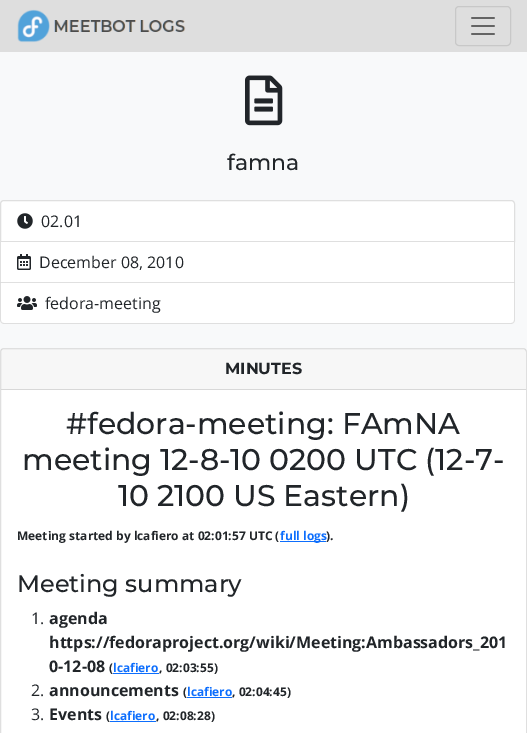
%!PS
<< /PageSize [527 733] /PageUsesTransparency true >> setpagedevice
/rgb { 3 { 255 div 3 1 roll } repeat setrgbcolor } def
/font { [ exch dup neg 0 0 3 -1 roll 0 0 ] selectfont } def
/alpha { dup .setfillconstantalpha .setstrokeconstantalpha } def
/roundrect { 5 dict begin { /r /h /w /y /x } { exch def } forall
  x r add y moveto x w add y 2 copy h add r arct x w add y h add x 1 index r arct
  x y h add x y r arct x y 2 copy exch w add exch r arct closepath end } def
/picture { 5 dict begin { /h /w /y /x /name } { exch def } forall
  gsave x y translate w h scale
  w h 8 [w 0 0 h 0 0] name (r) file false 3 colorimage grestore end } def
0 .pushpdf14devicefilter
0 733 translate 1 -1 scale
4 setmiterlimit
248 249 250 rgb
0 0 527 733 rectfill
222 222 222 rgb
0 0 527 52 rectfill
(img/1.rgb) 17 9 169 34 picture
200 200 200 rgb
455.5 6.5 55 39 3.5 roundrect stroke
(img/2.rgb) 471 17 24 18 picture
(img/3.rgb) 245 75 38 51 picture
255 255 255 rgb
4 200.5 moveto 511 200.5 lineto 513 200.5 514.5 202 514.5 204 curveto 514.5 241.5 lineto 0.5 241.5 lineto 0.5 204 lineto 0.5 202 2 200.5 4 200.5 curveto closepath gsave fill grestore
223 223 223 rgb
stroke
(img/4.rgb) 17 213 16 16 picture
255 255 255 rgb
0 242 515 41 rectfill
223 223 223 rgb
515 242 moveto 515 283 lineto 514 282 lineto 514 242 lineto closepath fill
0.12 alpha
0 0 0 rgb
515 283 moveto 0 283 lineto 1 282 lineto 514 282 lineto closepath fill
0 283 moveto 0 242 lineto 1 242 lineto 1 282 lineto closepath fill
1 alpha
(img/5.rgb) 17 254 14 16 picture
255 255 255 rgb
0 283 moveto 515 283 lineto 515 320 lineto 515 322 513 324 511 324 curveto 4 324 lineto 2 324 0 322 0 320 curveto closepath fill
223 223 223 rgb
0 283 moveto 515 283 lineto 515 320 lineto 515 322 513 324 511 324 curveto 4 324 lineto 2 324 0 322 0 320 curveto closepath 1 283 moveto 514 283 lineto 514 320 lineto 514 322 513 323 511 323 curveto 4 323 lineto 2 323 1 322 1 320 curveto closepath eofill
(img/6.rgb) 17 296 20 14 picture
255 255 255 rgb
0.5 348.5 526 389 3.5 roundrect gsave fill grestore
223 223 223 rgb
stroke
0.03 alpha
[
  [1 349 525 40 0 0 0]
] { aload pop rgb rectfill } forall
1 alpha
[
  [1 389 525 1 216 216 216]
  [280 541 46 1 13 110 253]
  [113 673 46 1 13 110 253]
  [187 697 45 1 13 110 253]
  [110 721 46 1 13 110 253]
] { aload pop rgb rectfill } forall
/Montserrat-Medium 22 font
33 37 41 rgb
227 170 moveto (famna) show
/OpenSans-Regular 16 font
[
  [(02.01) 41 227]
  [(December 08, 2010) 39 268]
  [(fedora-meeting) 45 309]
] { aload pop moveto show } forall
/Montserrat-Bold 16 font
225 374 moveto (MINUTES) show
/Montserrat-Medium 29.9 font
[
  [(#fedora-meeting: FAmNA) 66 434]
  [(meeting 12-8-10 0200 UTC \(12-7-) 22 470]
  [(10 2100 US Eastern\)) 118 506]
] { aload pop moveto show } forall
/OpenSans-Bold 12 font
17 540 moveto (Meeting started by lcafiero at 02:01:57 UTC \() show
13 110 253 rgb
280 540 moveto (full logs) show
33 37 41 rgb
326 540 moveto (\).) show
/Montserrat-Medium 24 font
17 592 moveto (Meeting summary) show
/OpenSans-Regular 16 font
31 624 moveto (1.) show
/OpenSans-Bold 16 font
[
  [(agenda) 49 624]
  [(https://fedoraproject.org/wiki/Meeting:Ambassadors_201) 49 648]
  [(0-12-08) 49 672]
] { aload pop moveto show } forall
/OpenSans-Bold 12 font
109 672 moveto (\() show
13 110 253 rgb
113 672 moveto (lcafiero) show
33 37 41 rgb
159 672 moveto (, 02:03:55\)) show
/OpenSans-Regular 16 font
31 696 moveto (2.) show
/OpenSans-Bold 16 font
49 696 moveto (announcements) show
/OpenSans-Bold 12 font
183 696 moveto (\() show
13 110 253 rgb
187 696 moveto (lcafiero) show
33 37 41 rgb
232 696 moveto (, 02:04:45\)) show
/OpenSans-Regular 16 font
31 720 moveto (3.) show
/OpenSans-Bold 16 font
49 720 moveto (Events) show
/OpenSans-Bold 12 font
106 720 moveto (\() show
13 110 253 rgb
110 720 moveto (lcafiero) show
33 37 41 rgb
156 720 moveto (, 02:08:28\)) show
.poppdf14devicefilter showpage
